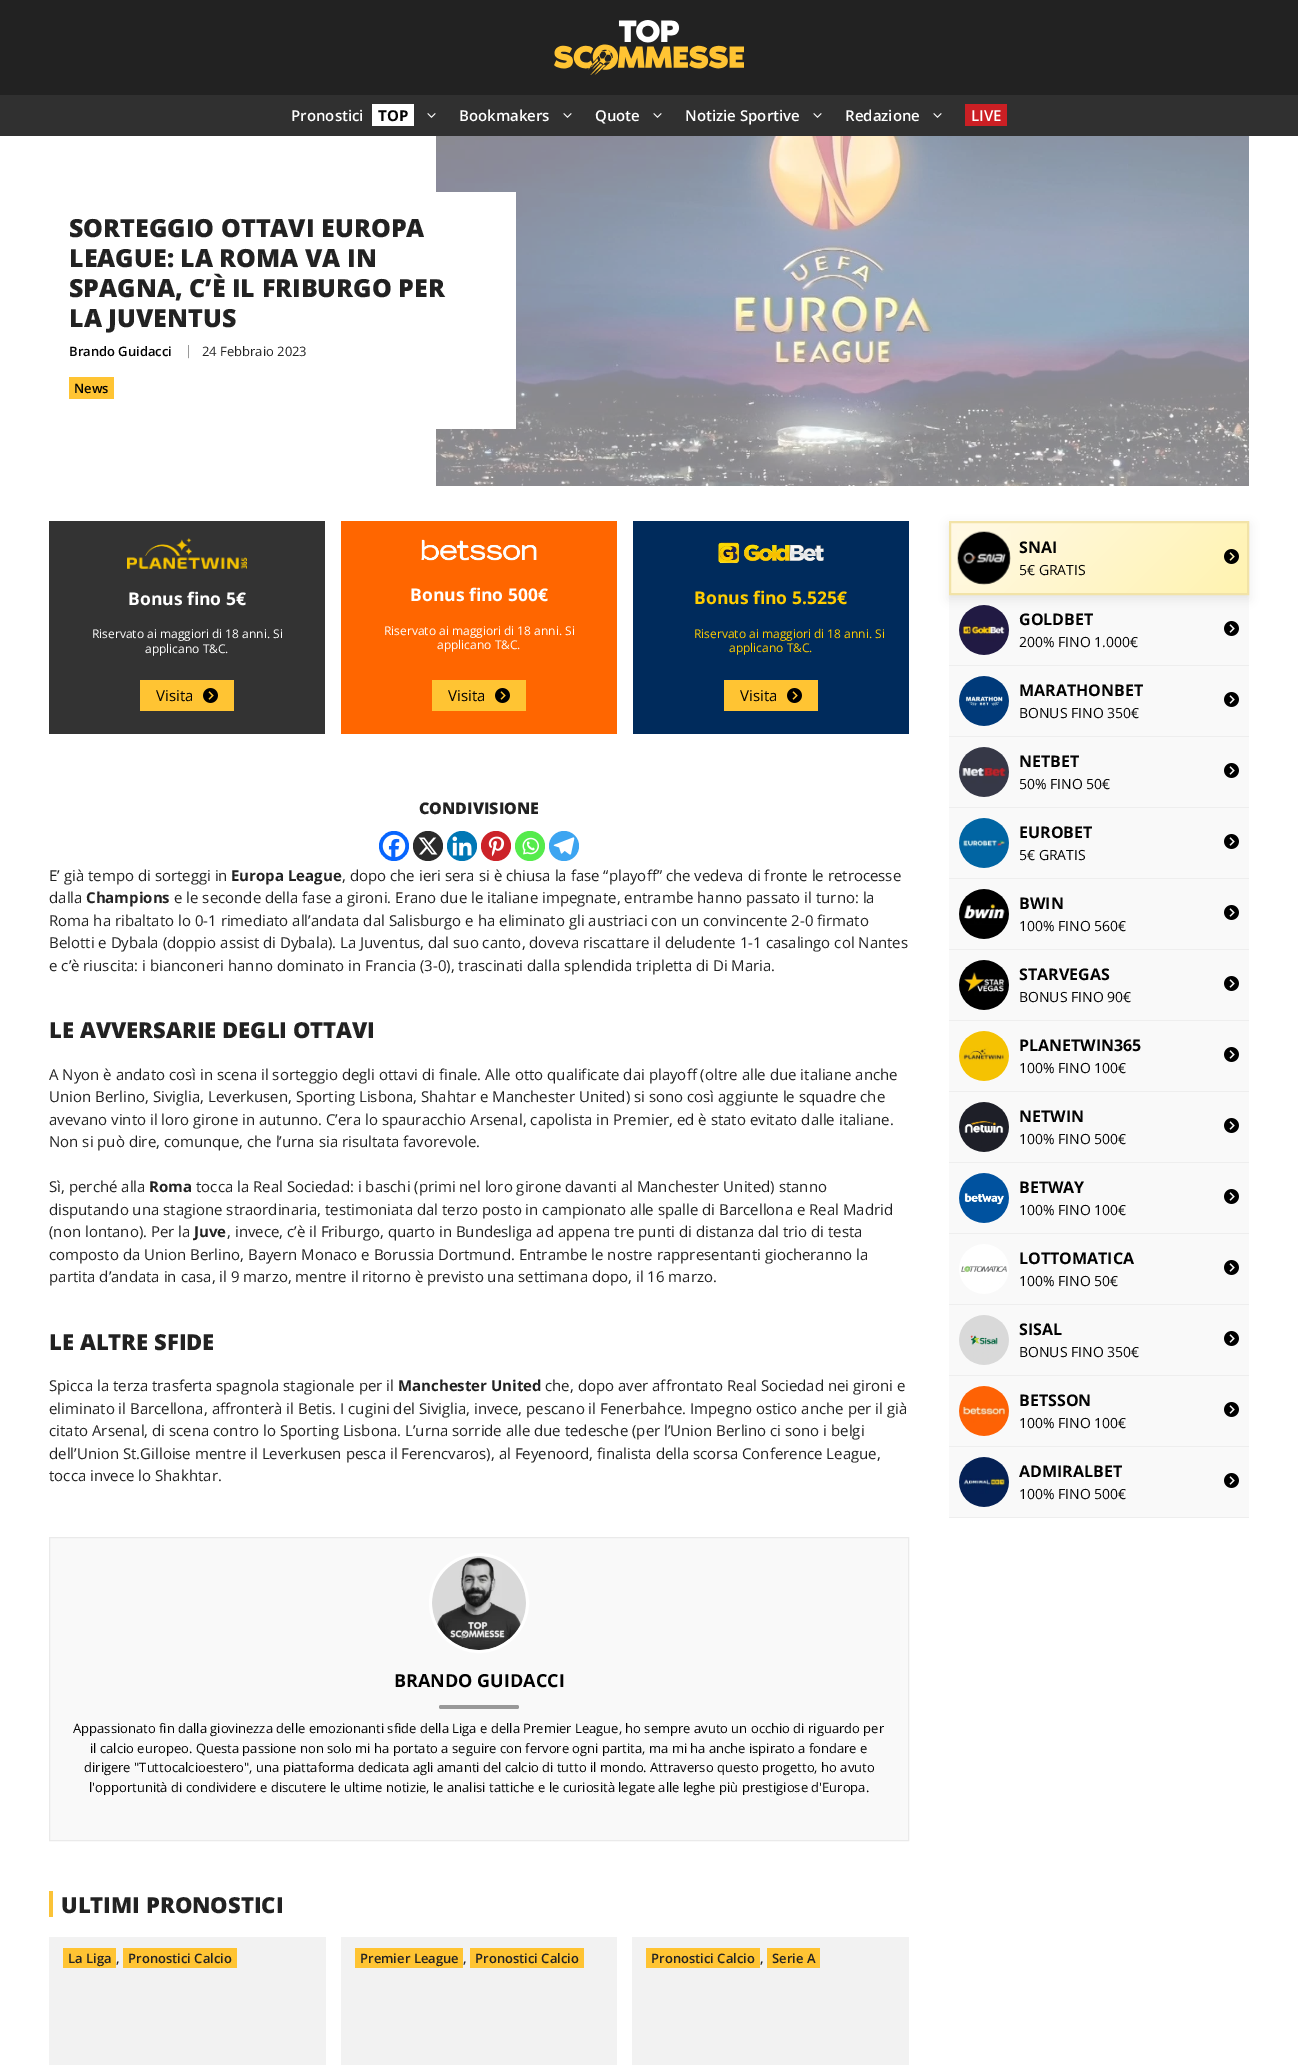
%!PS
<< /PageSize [1298 2065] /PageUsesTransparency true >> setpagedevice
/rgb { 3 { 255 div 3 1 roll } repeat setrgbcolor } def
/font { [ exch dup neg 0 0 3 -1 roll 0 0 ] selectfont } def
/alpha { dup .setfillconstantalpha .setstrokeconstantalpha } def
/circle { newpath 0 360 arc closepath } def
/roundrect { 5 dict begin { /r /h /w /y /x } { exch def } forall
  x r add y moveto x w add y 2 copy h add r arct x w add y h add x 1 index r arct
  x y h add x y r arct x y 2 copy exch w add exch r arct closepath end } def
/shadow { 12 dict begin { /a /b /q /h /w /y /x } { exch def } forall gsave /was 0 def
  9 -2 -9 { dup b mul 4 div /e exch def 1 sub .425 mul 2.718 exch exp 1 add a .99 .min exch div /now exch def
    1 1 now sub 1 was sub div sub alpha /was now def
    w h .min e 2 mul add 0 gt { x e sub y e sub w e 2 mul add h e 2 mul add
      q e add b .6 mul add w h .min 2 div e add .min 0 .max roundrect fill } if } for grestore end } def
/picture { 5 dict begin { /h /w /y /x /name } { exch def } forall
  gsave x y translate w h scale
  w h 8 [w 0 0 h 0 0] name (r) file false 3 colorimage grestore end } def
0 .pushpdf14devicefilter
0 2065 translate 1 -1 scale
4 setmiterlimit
255 255 255 rgb
0 0 1298 2065 rectfill
34 34 34 rgb
0 0 1298 95 rectfill
(img/1.rgb) 554 20 190 55 picture
48 48 48 rgb
0 95 1298 41 rectfill
255 255 255 rgb
372 104 42 22 rectfill
(img/2.rgb) 427 113 9 5 picture
(img/2.rgb) 563 113 9 5 picture
(img/2.rgb) 653 113 9 5 picture
(img/2.rgb) 813 113 9 5 picture
(img/2.rgb) 933 113 9 5 picture
203 31 36 rgb
965 104 42 22 rectfill
(img/3.rgb) 436 136 813 350 picture
[
  [436 192 80 237 255 255 255]
  [69 377 45 22 255 196 51]
  [49 521 276 213 51 51 51]
] { aload pop rgb rectfill } forall
(img/4.rgb) 127 538 120 31 picture
255 196 51 rgb
140 680 94 31 rectfill
(img/5.rgb) 203 688 15 15 picture
255 102 0 rgb
341 521 276 213 rectfill
(img/6.rgb) 421 539 116 22 picture
255 196 51 rgb
432 680 94 31 rectfill
(img/5.rgb) 495 688 15 15 picture
0 43 92 rgb
633 521 276 213 rectfill
(img/7.rgb) 718 542 106 22 picture
255 196 51 rgb
724 680 94 31 rectfill
(img/5.rgb) 787 688 15 15 picture
7 101 254 rgb
394 846 15 circle fill
(img/8.rgb) 382 834 24 24 picture
42 42 42 rgb
428 846 15 circle fill
(img/9.rgb) 418 837 20 18 picture
0 119 181 rgb
462 846 15 circle fill
(img/10.rgb) 452 836 20 20 picture
204 35 41 rgb
496 846 15 circle fill
(img/11.rgb) 488 836 17 21 picture
85 235 76 rgb
530 846 15 circle fill
(img/12.rgb) 522 837 17 18 picture
61 165 241 rgb
564 846 15 circle fill
(img/13.rgb) 553 837 22 18 picture
249 249 249 rgb
49.5 1537.5 moveto 908.5 1537.5 lineto 908.5 1840.5 lineto 49.5 1840.5 lineto closepath gsave fill grestore
234 234 234 rgb
stroke
255 255 255 rgb
3 setlinewidth
479 1603 48.5 circle stroke
(img/14.rgb) 432 1556 94 94 picture
153 153 153 rgb
439 1705 80 4 2 roundrect fill
[
  [49 1891 4 26 251 195 55]
  [49 1937 277 128 242 242 242]
  [63 1948 53 20 255 196 51]
  [123 1948 114 20 255 196 51]
  [341 1937 276 128 242 242 242]
  [355 1948 108 20 255 196 51]
  [470 1948 114 20 255 196 51]
  [632 1937 277 128 242 242 242]
  [646 1948 114 20 255 196 51]
  [767 1948 53 20 255 196 51]
  [949 595 300 70 249 249 249]
] { aload pop rgb rectfill } forall
(img/17.rgb) 959 605 50 50 picture
0 0 0 rgb
949 525 300 74 0 5 0.08 shadow
gsave 951 523 moveto 1247 523 lineto 1247 593 lineto 951 593 lineto closepath clip newpath
<< /ShadingType 2 /ColorSpace /DeviceRGB /Coords [1008 467 1191 650] /Extend [true true] /Function << /FunctionType 2 /Domain [0 1] /C0 [1 0.976 0.902] /C1 [1 0.953 0.69] /N 1 >> >> shfill grestore
242 227 167 rgb
2 setlinewidth
950 522 298 72 rectstroke
(img/15.rgb) 957 531 54 54 picture
(img/16.rgb) 1224 549 15 15 picture
238 238 238 rgb
949 665 300 1 rectfill
(img/18.rgb) 1224 621 15 15 picture
249 249 249 rgb
949 666 300 70 rectfill
238 238 238 rgb
949 736 300 1 rectfill
(img/19.rgb) 959 676 50 50 picture
(img/18.rgb) 1224 692 15 15 picture
249 249 249 rgb
949 737 300 70 rectfill
238 238 238 rgb
949 807 300 1 rectfill
(img/20.rgb) 959 747 50 50 picture
(img/18.rgb) 1224 763 15 15 picture
249 249 249 rgb
949 808 300 70 rectfill
238 238 238 rgb
949 878 300 1 rectfill
(img/21.rgb) 959 818 50 50 picture
(img/18.rgb) 1224 834 15 15 picture
249 249 249 rgb
949 879 300 70 rectfill
238 238 238 rgb
949 949 300 1 rectfill
(img/22.rgb) 959 889 50 50 picture
(img/18.rgb) 1224 905 15 15 picture
249 249 249 rgb
949 950 300 70 rectfill
238 238 238 rgb
949 1020 300 1 rectfill
(img/23.rgb) 959 960 50 50 picture
(img/18.rgb) 1224 976 15 15 picture
249 249 249 rgb
949 1021 300 70 rectfill
238 238 238 rgb
949 1091 300 1 rectfill
(img/24.rgb) 959 1031 50 50 picture
(img/18.rgb) 1224 1047 15 15 picture
249 249 249 rgb
949 1092 300 70 rectfill
238 238 238 rgb
949 1162 300 1 rectfill
(img/25.rgb) 959 1102 50 50 picture
(img/18.rgb) 1224 1118 15 15 picture
249 249 249 rgb
949 1163 300 70 rectfill
238 238 238 rgb
949 1233 300 1 rectfill
(img/26.rgb) 959 1173 50 50 picture
(img/18.rgb) 1224 1189 15 15 picture
249 249 249 rgb
949 1234 300 70 rectfill
238 238 238 rgb
949 1304 300 1 rectfill
(img/27.rgb) 959 1244 50 50 picture
(img/18.rgb) 1224 1260 15 15 picture
249 249 249 rgb
949 1305 300 70 rectfill
238 238 238 rgb
949 1375 300 1 rectfill
(img/28.rgb) 959 1315 50 50 picture
(img/18.rgb) 1224 1331 15 15 picture
249 249 249 rgb
949 1376 300 70 rectfill
238 238 238 rgb
949 1446 300 1 rectfill
(img/29.rgb) 959 1386 50 50 picture
(img/18.rgb) 1224 1402 15 15 picture
249 249 249 rgb
949 1447 300 70 rectfill
238 238 238 rgb
949 1517 300 1 rectfill
(img/30.rgb) 959 1457 50 50 picture
(img/18.rgb) 1224 1473 15 15 picture
/OpenSans-SemiBold 15 font
255 255 255 rgb
291 121 moveto (Pronostici) show
/OpenSans-Bold 15 font
2 2 2 rgb
378 121 moveto (TOP) show
/OpenSans-SemiBold 15 font
255 255 255 rgb
[
  [(Bookmakers) 459 121]
  [(Quote) 595 121]
  [(Notizie Sportive) 685 121]
  [(Redazione) 845 121]
  [(LIVE) 971 121]
] { aload pop moveto show } forall
/OpenSans-ExtraBold 25 font
34 34 34 rgb
[
  [(SORTEGGIO OTTAVI EUROPA) 69 237]
  [(LEAGUE: LA ROMA VA IN) 69 267]
  [(SPAGNA, C’È IL FRIBURGO PER) 69 297]
  [(LA JUVENTUS) 69 327]
] { aload pop moveto show } forall
/OpenSans-SemiBold 13 font
2 2 2 rgb
69 356 moveto (Brando Guidacci) show
/OpenSans-Regular 13 font
153 153 153 rgb
185 355 moveto (|) show
34 34 34 rgb
202 356 moveto (24 Febbraio 2023) show
/OpenSans-SemiBold 13 font
2 2 2 rgb
74 393 moveto (News) show
/OpenSans-Bold 17.5 font
255 255 255 rgb
128 605 moveto (Bonus fino 5€) show
/OpenSans-Regular 12 font
92 638 moveto (Riservato ai maggiori di 18 anni. Si) show
145 653 moveto (applicano T&C.) show
/OpenSans-Regular 15 font
2 2 2 rgb
156 701 moveto (Visita) show
/OpenSans-Bold 17.5 font
255 255 255 rgb
410 601 moveto (Bonus fino 500€) show
/OpenSans-Regular 12 font
384 635 moveto (Riservato ai maggiori di 18 anni. Si) show
437 649 moveto (applicano T&C.) show
/OpenSans-Regular 15 font
2 2 2 rgb
448 701 moveto (Visita) show
/OpenSans-Bold 17.5 font
255 204 0 rgb
694 604 moveto (Bonus fino 5.525€) show
/OpenSans-Regular 12 font
694 638 moveto (Riservato ai maggiori di 18 anni. Si) show
729 652 moveto (applicano T&C.) show
/OpenSans-Regular 15 font
2 2 2 rgb
740 701 moveto (Visita) show
/OpenSans-ExtraBold 16 font
34 34 34 rgb
419 814 moveto (CONDIVISIONE) show
/OpenSans-Regular 15 font
49 881 moveto (E’ già tempo di sorteggi in) show
/OpenSans-Bold 15 font
231 881 moveto (Europa League) show
/OpenSans-Regular 15 font
342 881 moveto (, dopo che ieri sera si è chiusa la fase “playoff” che vedeva di fronte le retrocesse) show
49 903 moveto (dalla) show
/OpenSans-Bold 15 font
86 903 moveto (Champions) show
/OpenSans-Regular 15 font
[
  [(e le seconde della fase a gironi. Erano due le italiane impegnate, entrambe hanno passato il turno: la) 174 903]
  [(Roma ha ribaltato lo 0-1 rimediato all’andata dal Salisburgo e ha eliminato gli austriaci con un convincente 2-0 firmato) 49 926]
  [(Belotti e Dybala \(doppio assist di Dybala\). La Juventus, dal suo canto, doveva riscattare il deludente 1-1 casalingo col Nantes) 49 948]
  [(e c’è riuscita: i bianconeri hanno dominato in Francia \(3-0\), trascinati dalla splendida tripletta di Di Maria.) 49 971]
] { aload pop moveto show } forall
/OpenSans-ExtraBold 22 font
49 1038 moveto (LE AVVERSARIE DEGLI OTTAVI) show
/OpenSans-Regular 15 font
[
  [(A Nyon è andato così in scena il sorteggio degli ottavi di finale. Alle otto qualificate dai playoff \(oltre alle due italiane anche) 49 1080]
  [(Union Berlino, Siviglia, Leverkusen, Sporting Lisbona, Shahtar e Manchester United\) si sono così aggiunte le squadre che) 49 1102]
  [(avevano vinto il loro girone in autunno. C’era lo spauracchio Arsenal, capolista in Premier, ed è stato evitato dalle italiane.) 49 1125]
  [(Non si può dire, comunque, che l’urna sia risultata favorevole.) 49 1147]
  [(Sì, perché alla) 49 1192]
] { aload pop moveto show } forall
/OpenSans-Bold 15 font
149 1192 moveto (Roma) show
/OpenSans-Regular 15 font
[
  [(tocca la Real Sociedad: i baschi \(primi nel loro girone davanti al Manchester United\) stanno) 196 1192]
  [(disputando una stagione straordinaria, testimoniata dal terzo posto in campionato alle spalle di Barcellona e Real Madrid) 49 1215]
  [(\(non lontano\). Per la) 49 1237]
] { aload pop moveto show } forall
/OpenSans-Bold 15 font
194 1237 moveto (Juve) show
/OpenSans-Regular 15 font
[
  [(, invece, c’è il Friburgo, quarto in Bundesliga ad appena tre punti di distanza dal trio di testa) 227 1237]
  [(composto da Union Berlino, Bayern Monaco e Borussia Dortmund. Entrambe le nostre rappresentanti giocheranno la) 49 1260]
  [(partita d’andata in casa, il 9 marzo, mentre il ritorno è previsto una settimana dopo, il 16 marzo.) 49 1282]
] { aload pop moveto show } forall
/OpenSans-ExtraBold 22 font
49 1350 moveto (LE ALTRE SFIDE) show
/OpenSans-Regular 15 font
49 1391 moveto (Spicca la terza trasferta spagnola stagionale per il) show
/OpenSans-Bold 15 font
398 1391 moveto (Manchester United) show
/OpenSans-Regular 15 font
[
  [(che, dopo aver affrontato Real Sociedad nei gironi e) 545 1391]
  [(eliminato il Barcellona, affronterà il Betis. I cugini del Siviglia, invece, pescano il Fenerbahce. Impegno ostico anche per il già) 49 1414]
  [(citato Arsenal, di scena contro lo Sporting Lisbona. L’urna sorride alle due tedesche \(per l’Union Berlino ci sono i belgi) 49 1436]
  [(dell’Union St.Gilloise mentre il Leverkusen pesca il Ferencvaros\), al Feyenoord, finalista della scorsa Conference League,) 49 1459]
  [(tocca invece lo Shakhtar.) 49 1481]
] { aload pop moveto show } forall
/OpenSans-Bold 18 font
2 2 2 rgb
394 1687 moveto (BRANDO GUIDACCI) show
/OpenSans-Regular 13 font
[
  [(Appassionato fin dalla giovinezza delle emozionanti sfide della Liga e della Premier League, ho sempre avuto un occhio di riguardo per) 73 1733]
  [(il calcio europeo. Questa passione non solo mi ha portato a seguire con fervore ogni partita, ma mi ha anche ispirato a fondare e) 90 1753]
  [(dirigere "Tuttocalcioestero", una piattaforma dedicata agli amanti del calcio di tutto il mondo. Attraverso questo progetto, ho avuto) 84 1772]
  [(l'opportunità di condividere e discutere le ultime notizie, le analisi tattiche e le curiosità legate alle leghe più prestigiose d'Europa.) 89 1792]
] { aload pop moveto show } forall
/OpenSans-ExtraBold 22 font
34 34 34 rgb
61 1913 moveto (ULTIMI PRONOSTICI) show
/OpenSans-SemiBold 13 font
[
  [(La Liga) 68 1963]
  [(,) 116 1963]
  [(Pronostici Calcio) 128 1963]
  [(Premier League) 360 1963]
  [(,) 463 1963]
  [(Pronostici Calcio) 475 1963]
  [(Pronostici Calcio) 651 1963]
  [(,) 760 1963]
  [(Serie A) 772 1963]
] { aload pop moveto show } forall
/OpenSans-Bold 16 font
2 2 2 rgb
1019 553 moveto (SNAI) show
/OpenSans-Regular 14 font
1019 575 moveto (5€ GRATIS) show
/OpenSans-Bold 16 font
1019 625 moveto (GOLDBET) show
/OpenSans-Regular 14 font
1019 647 moveto (200% FINO 1.000€) show
/OpenSans-Bold 16 font
1019 696 moveto (MARATHONBET) show
/OpenSans-Regular 14 font
1019 718 moveto (BONUS FINO 350€) show
/OpenSans-Bold 16 font
1019 767 moveto (NETBET) show
/OpenSans-Regular 14 font
1019 789 moveto (50% FINO 50€) show
/OpenSans-Bold 16 font
1019 838 moveto (EUROBET) show
/OpenSans-Regular 14 font
1019 860 moveto (5€ GRATIS) show
/OpenSans-Bold 16 font
1019 909 moveto (BWIN) show
/OpenSans-Regular 14 font
1019 931 moveto (100% FINO 560€) show
/OpenSans-Bold 16 font
1019 980 moveto (STARVEGAS) show
/OpenSans-Regular 14 font
1019 1002 moveto (BONUS FINO 90€) show
/OpenSans-Bold 16 font
1019 1051 moveto (PLANETWIN365) show
/OpenSans-Regular 14 font
1019 1073 moveto (100% FINO 100€) show
/OpenSans-Bold 16 font
1019 1122 moveto (NETWIN) show
/OpenSans-Regular 14 font
1019 1144 moveto (100% FINO 500€) show
/OpenSans-Bold 16 font
1019 1193 moveto (BETWAY) show
/OpenSans-Regular 14 font
1019 1215 moveto (100% FINO 100€) show
/OpenSans-Bold 16 font
1019 1264 moveto (LOTTOMATICA) show
/OpenSans-Regular 14 font
1019 1286 moveto (100% FINO 50€) show
/OpenSans-Bold 16 font
1019 1335 moveto (SISAL) show
/OpenSans-Regular 14 font
1019 1357 moveto (BONUS FINO 350€) show
/OpenSans-Bold 16 font
1019 1406 moveto (BETSSON) show
/OpenSans-Regular 14 font
1019 1428 moveto (100% FINO 100€) show
/OpenSans-Bold 16 font
1019 1477 moveto (ADMIRALBET) show
/OpenSans-Regular 14 font
1019 1499 moveto (100% FINO 500€) show
.poppdf14devicefilter showpage
